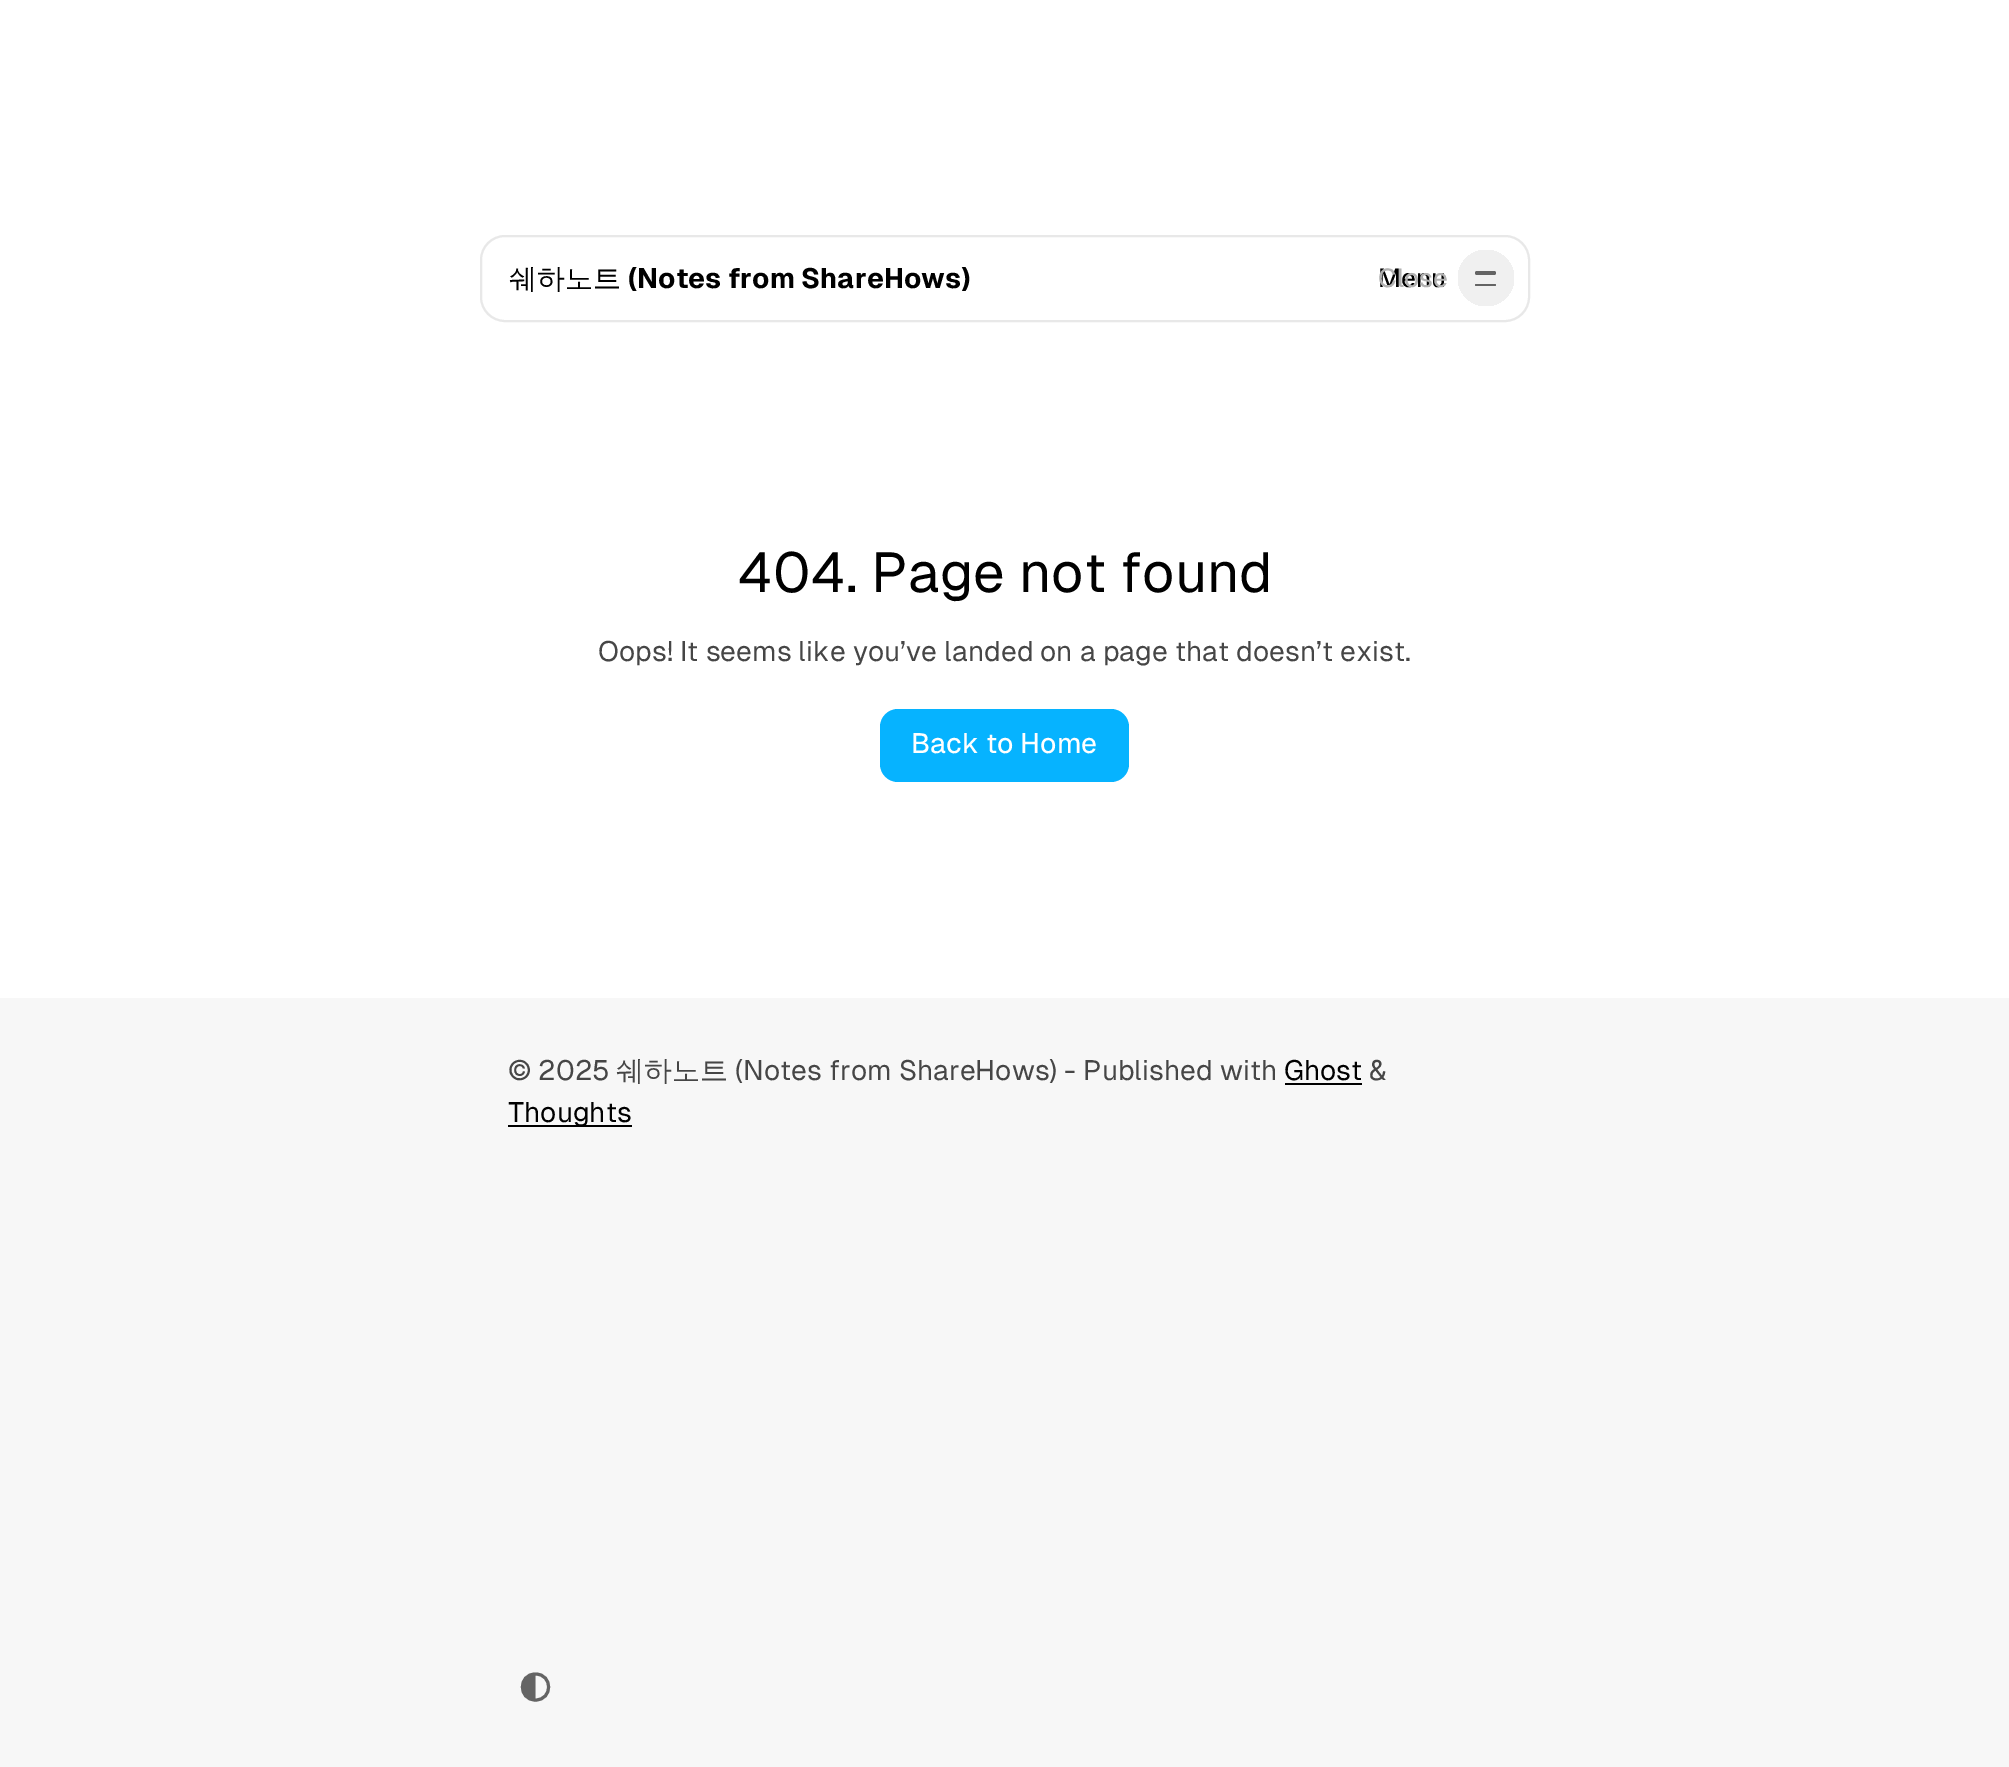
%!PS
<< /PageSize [2009 1767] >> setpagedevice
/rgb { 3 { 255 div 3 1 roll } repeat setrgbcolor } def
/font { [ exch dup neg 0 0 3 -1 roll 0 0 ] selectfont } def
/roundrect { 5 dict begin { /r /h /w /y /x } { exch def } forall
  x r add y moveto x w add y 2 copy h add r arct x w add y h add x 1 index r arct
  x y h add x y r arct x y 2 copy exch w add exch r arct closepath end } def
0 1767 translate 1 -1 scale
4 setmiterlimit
255 255 255 rgb
0 0 2009 1767 rectfill
232 232 232 rgb
2 setlinewidth
481 236 1048 85 24 roundrect stroke
gsave
1458 250 56 56 28 roundrect clip newpath
240 240 240 rgb
1365 243 156 70 18 roundrect fill
grestore
100 100 100 rgb
1475 271 21 4 2 roundrect fill
1475 284 21 2 1 roundrect fill
6 179 255 rgb
880 709 249 73 18 roundrect fill
[
  [0 998 2009 769 247 247 247]
  [1285 1083 77 2 0 0 0]
  [508 1125 124 2 0 0 0]
] { aload pop rgb rectfill } forall
100 100 100 rgb
3 setlinewidth
1 setlinecap
1 setlinejoin
535.5 1700 moveto 553 1700 553 1674 535.5 1674 curveto 518 1674 518 1700 535.5 1700 curveto closepath stroke
535.5 1700 moveto 518 1700 518 1674 535.5 1674 curveto closepath fill
/WenQuanYiZenHei-Medium 28 font
0 0 0 rgb
509 288 moveto (쉐하노트) show
/Geist-Bold 28 font
628 288 moveto (\(Notes from ShareHows\)) show
/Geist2-Regular 26 font
1378 287 moveto (Menu) show
177 177 177 rgb
1378 287 moveto (Close) show
/Geist-Regular 56 font
0 0 0 rgb
737 592 moveto (404. Page not found) show
/Geist-Regular 28 font
70 70 70 rgb
598 661 moveto (Oops! It seems like you’ve landed on a page that doesn’t exist.) show
/Geist2-Regular 28 font
255 255 255 rgb
911 753 moveto (Back to Home) show
/Geist-Regular 28 font
70 70 70 rgb
508 1080 moveto (© 2025) show
/WenQuanYiZenHei-Medium 28 font
616 1080 moveto (쉐하노트) show
/Geist-Regular 28 font
735 1080 moveto (\(Notes from ShareHows\) - Published with) show
0 0 0 rgb
1284 1080 moveto (Ghost) show
70 70 70 rgb
1369 1080 moveto (&) show
0 0 0 rgb
508 1122 moveto (Thoughts) show
showpage
